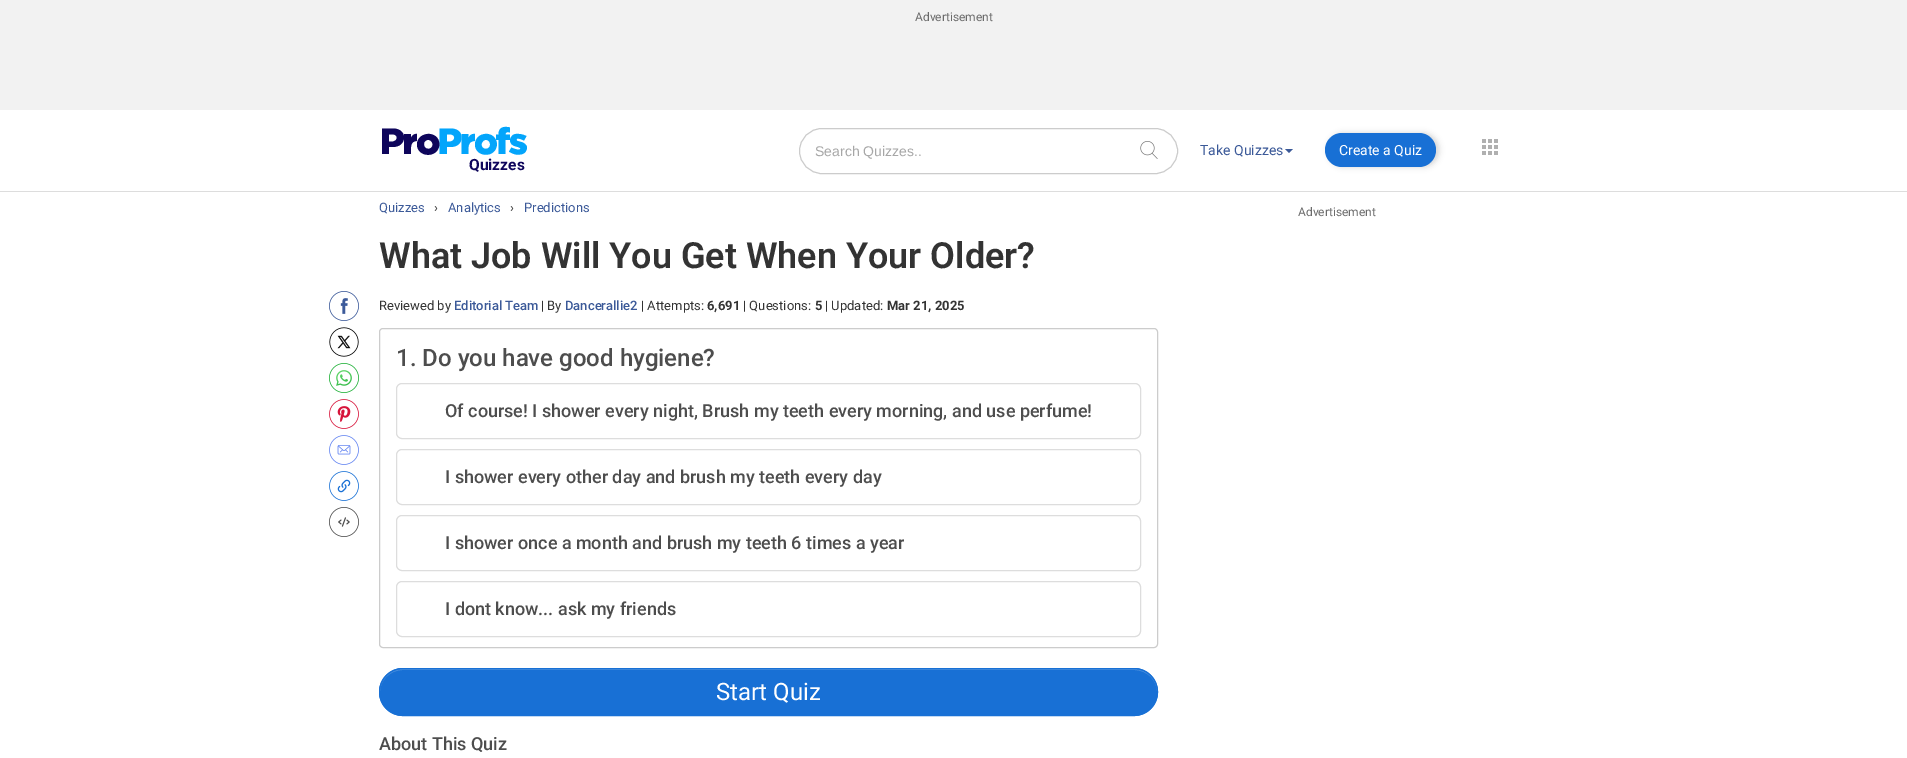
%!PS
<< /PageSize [1907 758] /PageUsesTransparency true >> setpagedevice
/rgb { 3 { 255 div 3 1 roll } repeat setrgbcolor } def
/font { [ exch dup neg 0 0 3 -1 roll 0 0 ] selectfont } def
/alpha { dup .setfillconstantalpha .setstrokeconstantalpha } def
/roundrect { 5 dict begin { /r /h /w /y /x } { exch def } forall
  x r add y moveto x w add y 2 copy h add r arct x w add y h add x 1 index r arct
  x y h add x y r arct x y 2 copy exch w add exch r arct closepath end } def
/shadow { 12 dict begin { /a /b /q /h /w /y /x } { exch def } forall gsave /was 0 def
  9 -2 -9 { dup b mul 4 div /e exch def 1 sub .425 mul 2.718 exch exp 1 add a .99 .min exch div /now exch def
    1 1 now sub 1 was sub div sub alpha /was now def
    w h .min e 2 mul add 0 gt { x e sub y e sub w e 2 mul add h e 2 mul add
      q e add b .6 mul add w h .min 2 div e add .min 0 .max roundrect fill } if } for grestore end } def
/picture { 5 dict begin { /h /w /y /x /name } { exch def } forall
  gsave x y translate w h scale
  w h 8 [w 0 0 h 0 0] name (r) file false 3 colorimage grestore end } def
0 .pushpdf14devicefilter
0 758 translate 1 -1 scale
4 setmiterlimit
255 255 255 rgb
0 0 1907 758 rectfill
242 242 242 rgb
0 0 1907 110 rectfill
221 221 221 rgb
0 191 1907 1 rectfill
204 204 204 rgb
799.5 128.5 378 45 22.5 roundrect stroke
(img/1.rgb) 1140 141 18 18 picture
59 89 152 rgb
1285 149 moveto 1293 149 lineto 1289 153 lineto closepath fill
0 0 0 rgb
1328 133 111 34 17 3 0.16 shadow
24 112 213 rgb
1325 133 111 34 17 roundrect fill
(img/2.rgb) 1482 139 16 16 picture
3 165 251 rgb
450.5 128.5 moveto 439.5 128.5 lineto 439.5 154 lineto 447 154 lineto 447 147 lineto 450.5 147 lineto 457 147 461.5 143.5 461.5 137.5 curveto 461.5 132 457.5 128.5 450.5 128.5 curveto closepath 450 141.5 moveto 447 141.5 lineto 447 134.5 lineto 448.5 134.5 451 134 452.5 135 curveto 456 136.5 454 141.5 450 141.5 curveto closepath eofill
468.5 134 moveto 461.5 134 lineto 461.5 154 lineto 468.5 154 lineto 468.5 148.5 467 141 475 141 curveto 475 134 lineto 471.5 133.5 469.5 135.5 468.5 138 curveto closepath fill
475 144.5 moveto 475 156 491.5 158.5 496 148.5 curveto 496.5 147 497 145.5 497 144 curveto 495.5 129.5 475 131.5 475 144.5 curveto closepath 490 144.5 moveto 490.5 150 481.5 150.5 481.5 144.5 curveto 481.5 143.5 482 142.5 482.5 142 curveto 484.5 138 490.5 140 490 144.5 curveto closepath eofill
496 140 moveto 498.5 140 lineto 498.5 154 lineto 505.5 154 lineto 505.5 140 lineto 510 140 lineto 510 134.5 lineto 505.5 134.5 lineto 505.5 131.5 508 132 510 132.5 curveto 510 127.5 lineto 504 126 498.5 127 498.5 134.5 curveto 496 134.5 lineto closepath fill
509 151.5 moveto 511 153 513.5 154 516 154.5 curveto 521.5 155 526 154 527 148 curveto 527 146.5 526.5 145.5 525.5 144.5 curveto 523.5 142 520.5 142 517.5 141 curveto 516.5 140.5 516 139 517.5 138.5 curveto 519.5 138.5 522 139.5 524 140.5 curveto 526.5 136 lineto 524 135 521.5 134 519 134 curveto 516.5 133.5 513 134 511.5 136.5 curveto 510.5 137.5 510 139 510 140.5 curveto 510.5 145 514 146 518 147 curveto 520 148 lineto 522 150 517 149.5 517 149.5 curveto 515 149 513 148.5 511.5 147.5 curveto closepath fill
14 5 91 rgb
382 128.5 moveto 382 154 lineto 389 154 lineto 389 147 lineto 392.5 147 lineto 399 147 404 143.5 404 137.5 curveto 404 132 399.5 128.5 393 128.5 curveto closepath 392.5 141.5 moveto 389 141.5 lineto 389 134.5 lineto 391 134.5 393.5 134 395 135 curveto 398.5 136.5 396.5 141.5 392.5 141.5 curveto closepath eofill
411 134 moveto 404 134 lineto 404 154 lineto 411 154 lineto 411 148.5 409.5 141 417 141 curveto 417 134 lineto 414 133.5 412 135.5 411 138 curveto closepath fill
417 144.5 moveto 417 157.5 438 159 439.5 144.5 curveto 439.5 143 439 141.5 438.5 140 curveto 434 130 417 133 417 144.5 curveto closepath 432.5 144.5 moveto 433 150 424 150.5 424 144.5 curveto 424 143.5 424 142.5 424.5 142 curveto 427 138 432.5 140 432.5 144.5 curveto closepath eofill
(img/3.rgb) 329 291 30 30 picture
(img/4.rgb) 329 327 30 30 picture
(img/5.rgb) 329 363 30 30 picture
(img/6.rgb) 329 399 30 30 picture
(img/7.rgb) 329 435 30 30 picture
(img/8.rgb) 329 471 30 30 picture
(img/9.rgb) 329 507 30 30 picture
204 204 204 rgb
379.5 328.5 778 319 3.5 roundrect stroke
221 221 221 rgb
396.5 383.5 744 55 5.5 roundrect stroke
396.5 449.5 744 55 5.5 roundrect stroke
396.5 515.5 744 55 5.5 roundrect stroke
396.5 581.5 744 55 5.5 roundrect stroke
24 112 213 rgb
379 668 779 48 24 roundrect fill
70 141 221 rgb
403 670 moveto 1134 670 lineto 1147 670 1157 680 1157 692 curveto 1157 679 1147 669 1134 669 curveto 403 669 lineto 390 669 380 679 380 692 curveto 380 680 390 670 403 670 curveto closepath fill
24 112 213 rgb
379.5 668.5 778 47 23.5 roundrect stroke
/Roboto-Regular 12 font
107 107 107 rgb
915 21 moveto (Advertisement) show
/LiberationSans-Regular 14 font
167 167 167 rgb
815 156 moveto (Search Quizzes..) show
/Roboto-Regular 14 font
59 89 152 rgb
1200 155 moveto (Take Quizzes) show
255 255 255 rgb
1339 155 moveto (Create a Quiz) show
/Roboto-Bold 15.5 font
14 5 91 rgb
469 170 moveto (Quizzes) show
/Roboto-Regular 13 font
59 89 152 rgb
379 212 moveto (Quizzes) show
51 51 51 rgb
434 212 moveto (›) show
59 89 152 rgb
448 212 moveto (Analytics) show
51 51 51 rgb
510 212 moveto (›) show
59 89 152 rgb
524 212 moveto (Predictions) show
/Roboto-Regular 12 font
107 107 107 rgb
1298 216 moveto (Advertisement) show
/Roboto-SemiBold 36 font
51 51 51 rgb
379 268 moveto (What Job Will You Get When Your Older?) show
/Roboto-Regular 13 font
379 310 moveto (Reviewed by) show
/Roboto-Medium 13 font
59 89 152 rgb
454 310 moveto (Editorial Team) show
/Roboto-Regular 13 font
51 51 51 rgb
541 310 moveto (| By) show
/Roboto-Medium 13 font
59 89 152 rgb
565 310 moveto (Dancerallie2) show
/Roboto-Regular 13 font
51 51 51 rgb
641 310 moveto (| Attempts:) show
/Roboto-Bold 13 font
707 310 moveto (6,691) show
/Roboto-Regular 13 font
743 310 moveto (| Questions:) show
/Roboto-Bold 13 font
815 310 moveto (5) show
/Roboto-Regular 13 font
825 310 moveto (| Updated:) show
/Roboto-Bold 13 font
887 310 moveto (Mar 21, 2025) show
/Roboto-Medium 24 font
77 77 77 rgb
396 366 moveto (1. Do you have good hygiene?) show
/Roboto-Medium 18 font
[
  [(Of course! I shower every night, Brush my teeth every morning, and use perfume!) 445 417]
  [(I shower every other day and brush my teeth every day) 445 483]
  [(I shower once a month and brush my teeth 6 times a year) 445 549]
  [(I dont know... ask my friends) 445 615]
] { aload pop moveto show } forall
/Roboto-Regular 24 font
255 255 255 rgb
716 700 moveto (Start Quiz) show
/Roboto-Medium 18 font
77 77 77 rgb
379 750 moveto (About This Quiz) show
.poppdf14devicefilter showpage
